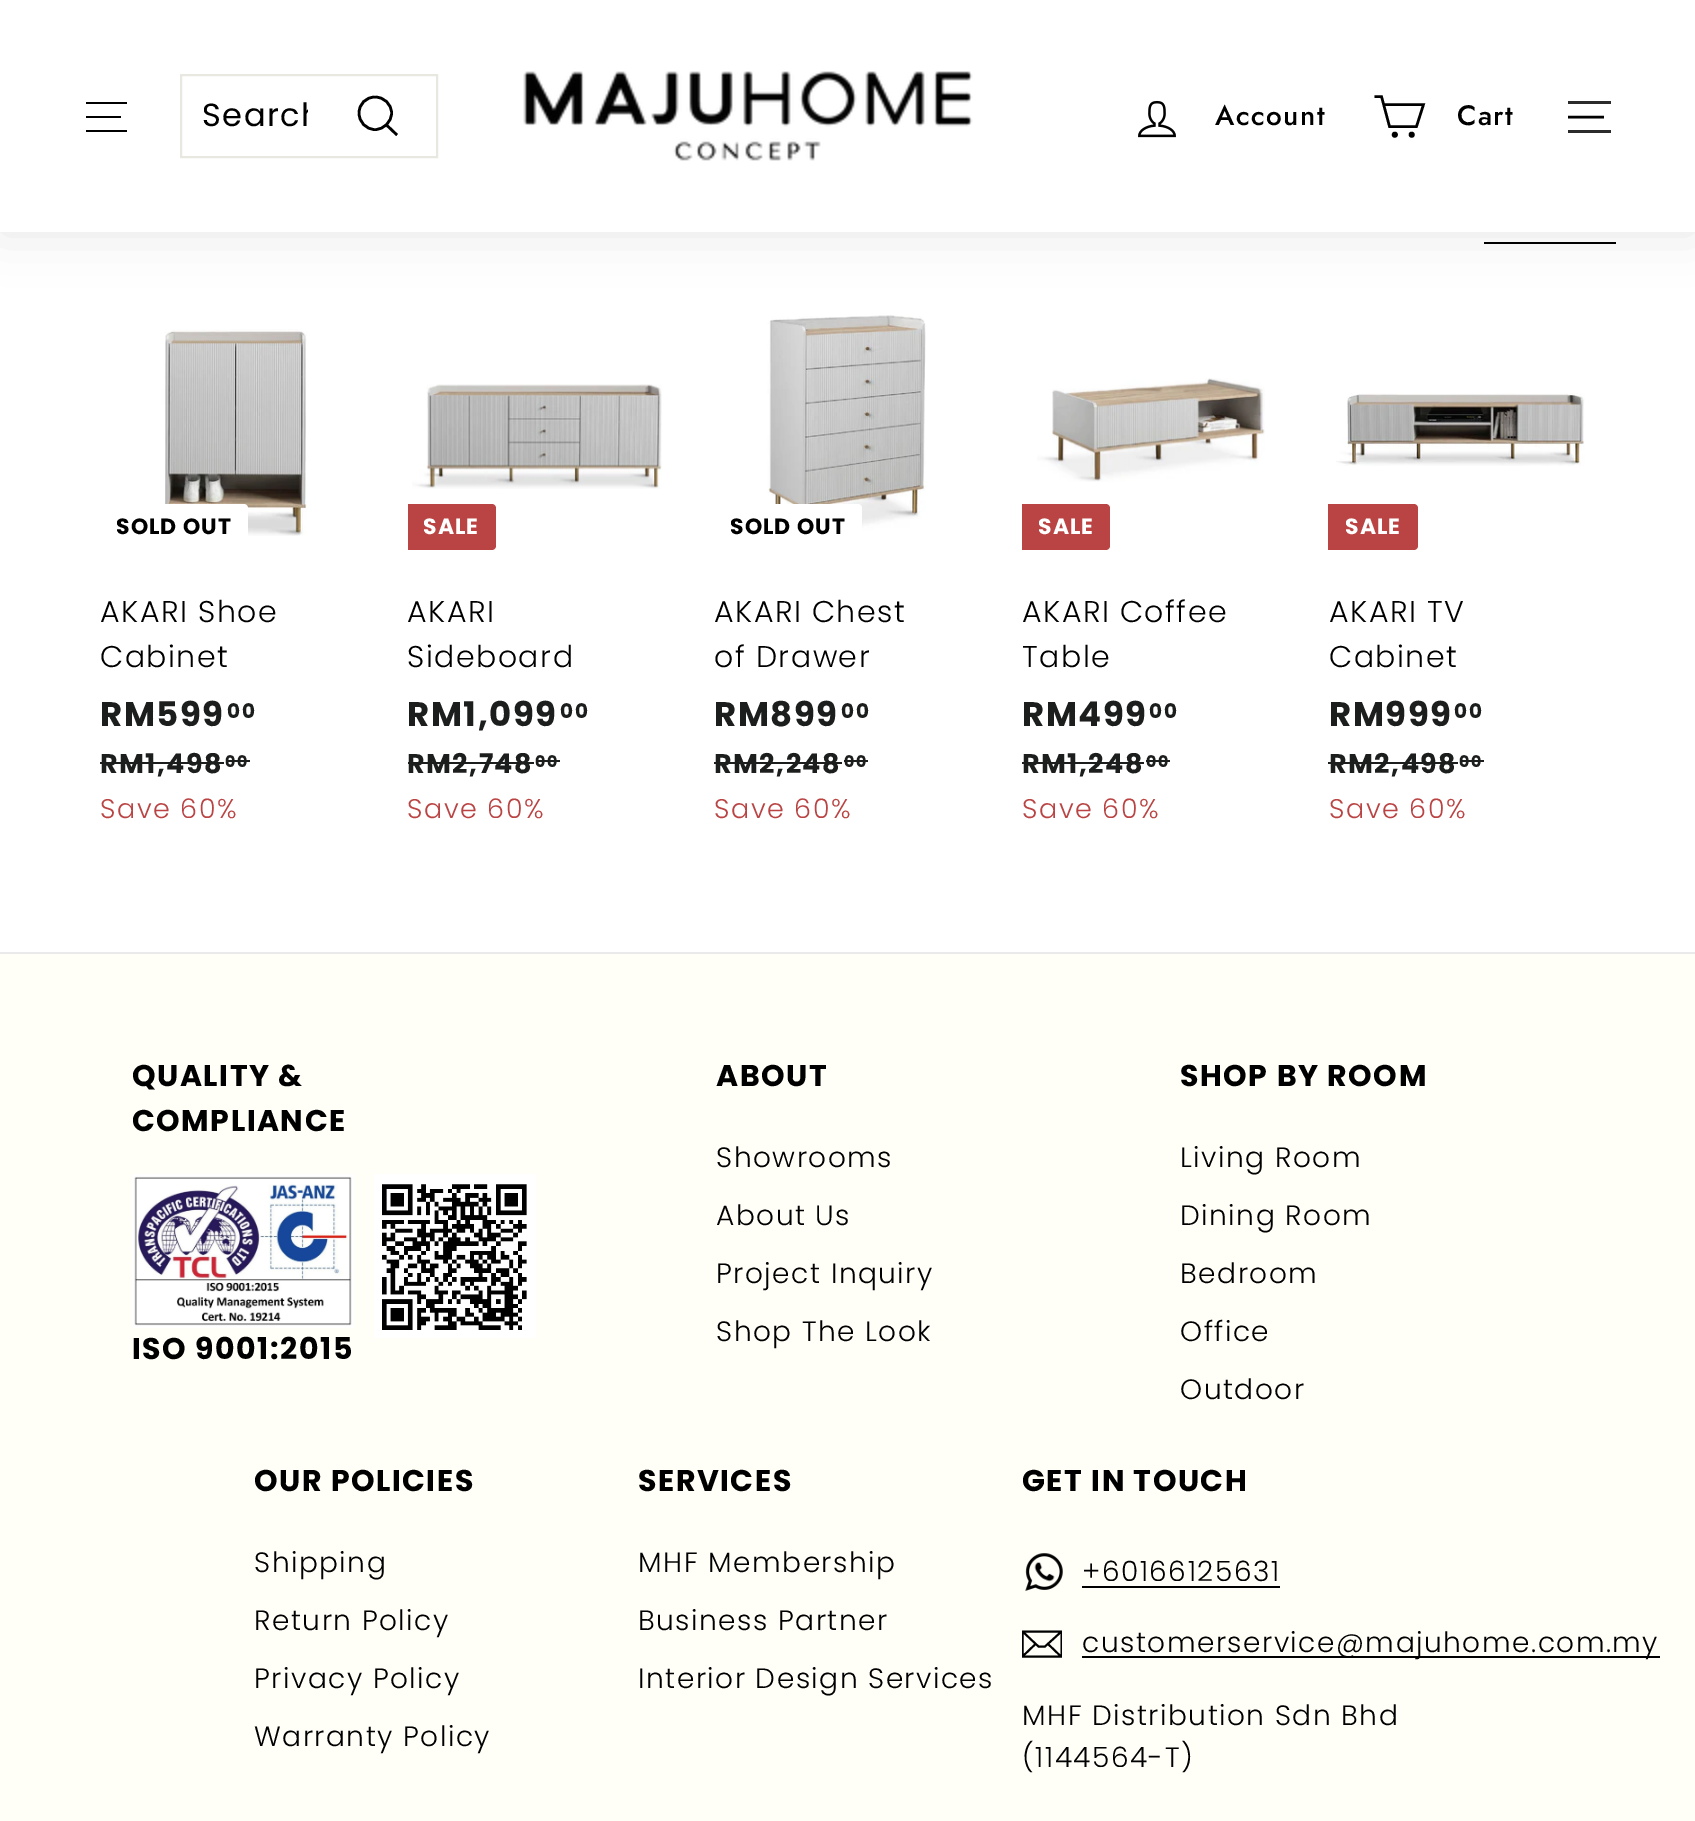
%!PS
<< /PageSize [1695 1821] /PageUsesTransparency true >> setpagedevice
/rgb { 3 { 255 div 3 1 roll } repeat setrgbcolor } def
/font { [ exch dup neg 0 0 3 -1 roll 0 0 ] selectfont } def
/alpha { dup .setfillconstantalpha .setstrokeconstantalpha } def
/circle { newpath 0 360 arc closepath } def
/roundrect { 5 dict begin { /r /h /w /y /x } { exch def } forall
  x r add y moveto x w add y 2 copy h add r arct x w add y h add x 1 index r arct
  x y h add x y r arct x y 2 copy exch w add exch r arct closepath end } def
/shadow { 12 dict begin { /a /b /q /h /w /y /x } { exch def } forall gsave /was 0 def
  9 -2 -9 { dup b mul 4 div /e exch def 1 sub .425 mul 2.718 exch exp 1 add a .99 .min exch div /now exch def
    1 1 now sub 1 was sub div sub alpha /was now def
    w h .min e 2 mul add 0 gt { x e sub y e sub w e 2 mul add h e 2 mul add
      q e add b .6 mul add w h .min 2 div e add .min 0 .max roundrect fill } if } for grestore end } def
/picture { 5 dict begin { /h /w /y /x /name } { exch def } forall
  gsave x y translate w h scale
  w h 8 [w 0 0 h 0 0] name (r) file false 3 colorimage grestore end } def
0 .pushpdf14devicefilter
0 1821 translate 1 -1 scale
4 setmiterlimit
255 255 255 rgb
0 0 1695 1821 rectfill
0 0 0 rgb
1484 242 132 2 rectfill
0 0 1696 232 0 25 0.1 shadow
[
  [0 0 1695 232 255 255 255]
  [86 102 41 2 0 0 0]
  [86 116 35 2 0 0 0]
  [86 130 41 2 0 0 0]
] { aload pop rgb rectfill } forall
232 232 225 rgb
2 setlinewidth
181 75 256 82 rectstroke
0 0 0 rgb
2.6 setlinewidth
391.5 113 moveto 391.5 122 384 129.5 375 129.5 curveto 366 129.5 359 122 359 113 curveto 359 104 366 97 375 97 curveto 384 97 391.5 104 391.5 113 curveto closepath 397 135 moveto 386.5 125 lineto stroke
(img/1.rgb) 523 71 450 90 picture
(img/2.rgb) 1138 100 38 38 picture
2.5 setlinewidth
1384 104.5 moveto 1423.5 104.5 lineto 1416.5 126.5 lineto 1389.5 126.5 lineto 1381.5 96.5 lineto 1374.5 96.5 lineto stroke
1394.8 134.7 1.7 circle gsave fill grestore
stroke
1411.7 134.7 1.7 circle gsave fill grestore
stroke
43 43 43 rgb
1568 101 43 3 rectfill
0 0 0 rgb
1568 117 moveto 1604 117 lineto stroke
43 43 43 rgb
1568 130 43 3 rectfill
(img/3.rgb) 142 329 165 207 picture
255 255 255 rgb
100 504 moveto 244 504 lineto 246 504 248 506 248 508 curveto 248 546 lineto 248 548 246 550 244 550 curveto 100 550 lineto closepath fill
28 29 29 rgb
100 762 124 2 rectfill
226 760 24 2 rectfill
(img/4.rgb) 412 384 250 105 picture
186 68 68 rgb
408 504 moveto 492 504 lineto 494 504 496 506 496 508 curveto 496 546 lineto 496 548 494 550 492 550 curveto 408 550 lineto closepath fill
28 29 29 rgb
408 762 126 2 rectfill
536 760 24 2 rectfill
(img/5.rgb) 749 315 177 222 picture
255 255 255 rgb
714 504 moveto 858 504 lineto 860 504 862 506 862 508 curveto 862 546 lineto 862 548 860 550 858 550 curveto 714 550 lineto closepath fill
28 29 29 rgb
714 762 128 2 rectfill
844 760 24 2 rectfill
(img/6.rgb) 1037 378 228 104 picture
186 68 68 rgb
1022 504 moveto 1106 504 lineto 1108 504 1110 506 1110 508 curveto 1110 546 lineto 1110 548 1108 550 1106 550 curveto 1022 550 lineto closepath fill
28 29 29 rgb
1022 762 122 2 rectfill
1146 760 24 2 rectfill
(img/7.rgb) 1336 393 249 73 picture
186 68 68 rgb
1328 504 moveto 1414 504 lineto 1416 504 1418 506 1418 508 curveto 1418 546 lineto 1418 548 1416 550 1414 550 curveto 1328 550 lineto closepath fill
[
  [1328 762 130 2 28 29 29]
  [1460 760 24 2 28 29 29]
  [0 954 1695 867 255 254 247]
  [0 952 1695 2 234 234 234]
] { aload pop rgb rectfill } forall
(img/8.rgb) 374 1174 162 164 picture
(img/9.rgb) 132 1174 222 154 picture
(img/10.rgb) 1025 1553 38 38 picture
0 0 0 rgb
1082 1586 198 2 rectfill
gsave
1022 1624 40 40 rectclip
1.9 setlinewidth
1061.5 1656.5 moveto 1022.5 1656.5 lineto 1022.5 1631.5 lineto 1061.5 1631.5 lineto closepath 1022.5 1631.5 moveto 1038.5 1646.5 lineto 1045 1646.5 lineto 1061.5 1631.5 lineto 1035.5 1644 moveto 1023 1656 lineto 1061 1656.5 moveto 1048 1644 lineto stroke
grestore
1082 1656 578 2 rectfill
gsave
202 90 106 50 rectclip
/Poppins-Regular 32 font
202 126 moveto 1.5 0 (Search) ashow
grestore
/Jost-Medium 28 font
1215 125 moveto 1.5 0 (Account) ashow
1457 125 moveto 1.5 0 (Cart) ashow
/Poppins-Bold 22 font
116 534 moveto 1 0 (SOLD OUT) ashow
/Poppins-Light 30 font
100 622 moveto 1.5 0 (AKARI Shoe) ashow
100 667 moveto 1.5 0 (Cabinet) ashow
/Poppins-Bold 34 font
28 29 29 rgb
100 726 moveto 1.5 0 (RM599) ashow
/Poppins-Bold 20 font
227 718 moveto 1.5 0 (00) ashow
/Poppins-Bold 27 font
100 773 moveto 1.5 0 (RM1,498) ashow
/Poppins-Bold 16 font
225 767 moveto 1.5 0 (00) ashow
/Poppins-Light 27 font
186 68 68 rgb
100 818 moveto 1.5 0 (Save 60%) ashow
/Poppins-Bold 22 font
255 255 255 rgb
423 534 moveto 1 0 (SALE) ashow
/Poppins-Light 30 font
0 0 0 rgb
407 622 moveto 1.5 0 (AKARI) ashow
407 667 moveto 1.5 0 (Sideboard) ashow
/Poppins-Bold 34 font
28 29 29 rgb
407 726 moveto 1.5 0 (RM1,099) ashow
/Poppins-Bold 20 font
560 718 moveto 1.5 0 (00) ashow
/Poppins-Bold 27 font
407 773 moveto 1.5 0 (RM2,748) ashow
/Poppins-Bold 16 font
535 767 moveto 1.5 0 (00) ashow
/Poppins-Light 27 font
186 68 68 rgb
407 818 moveto 1.5 0 (Save 60%) ashow
/Poppins-Bold 22 font
0 0 0 rgb
730 534 moveto 1 0 (SOLD OUT) ashow
/Poppins-Light 30 font
714 622 moveto 1.5 0 (AKARI Chest) ashow
714 667 moveto 1.5 0 (of Drawer) ashow
/Poppins-Bold 34 font
28 29 29 rgb
714 726 moveto 1.5 0 (RM899) ashow
/Poppins-Bold 20 font
841 718 moveto 1.5 0 (00) ashow
/Poppins-Bold 27 font
714 773 moveto 1.5 0 (RM2,248) ashow
/Poppins-Bold 16 font
844 767 moveto 1.5 0 (00) ashow
/Poppins-Light 27 font
186 68 68 rgb
714 818 moveto 1.5 0 (Save 60%) ashow
/Poppins-Bold 22 font
255 255 255 rgb
1038 534 moveto 1 0 (SALE) ashow
/Poppins-Light 30 font
0 0 0 rgb
1022 622 moveto 1.5 0 (AKARI Coffee) ashow
1022 667 moveto 1.5 0 (Table) ashow
/Poppins-Bold 34 font
28 29 29 rgb
1022 726 moveto 1.5 0 (RM499) ashow
/Poppins-Bold 20 font
1149 718 moveto 1.5 0 (00) ashow
/Poppins-Bold 27 font
1022 773 moveto 1.5 0 (RM1,248) ashow
/Poppins-Bold 16 font
1146 767 moveto 1.5 0 (00) ashow
/Poppins-Light 27 font
186 68 68 rgb
1022 818 moveto 1.5 0 (Save 60%) ashow
/Poppins-Bold 22 font
255 255 255 rgb
1345 534 moveto 1 0 (SALE) ashow
/Poppins-Light 30 font
0 0 0 rgb
1329 622 moveto 1.5 0 (AKARI TV) ashow
1329 667 moveto 1.5 0 (Cabinet) ashow
/Poppins-Bold 34 font
28 29 29 rgb
1329 726 moveto 1.5 0 (RM999) ashow
/Poppins-Bold 20 font
1454 718 moveto 1.5 0 (00) ashow
/Poppins-Bold 27 font
1329 773 moveto 1.5 0 (RM2,498) ashow
/Poppins-Bold 16 font
1459 767 moveto 1.5 0 (00) ashow
/Poppins-Light 27 font
186 68 68 rgb
1329 818 moveto 1.5 0 (Save 60%) ashow
/Poppins-Bold 30 font
0 0 0 rgb
132 1086 moveto 1.5 0 (QUALITY &) ashow
132 1131 moveto 1.5 0 (COMPLIANCE) ashow
132 1359 moveto 1.5 0 (ISO 9001:2015) ashow
716 1086 moveto 1.5 0 (ABOUT) ashow
/Poppins-Light 28 font
716 1167 moveto 1.5 0 (Showrooms) ashow
716 1225 moveto 1.5 0 (About Us) ashow
716 1283 moveto 1.5 0 (Project Inquiry) ashow
716 1341 moveto 1.5 0 (Shop The Look) ashow
/Poppins-Bold 30 font
1180 1086 moveto 1.5 0 (SHOP BY ROOM) ashow
/Poppins-Light 28 font
1180 1167 moveto 1.5 0 (Living Room) ashow
1180 1225 moveto 1.5 0 (Dining Room) ashow
1180 1283 moveto 1.5 0 (Bedroom) ashow
1180 1341 moveto 1.5 0 (Office) ashow
1180 1399 moveto 1.5 0 (Outdoor) ashow
/Poppins-Bold 30 font
254 1491 moveto 1.5 0 (OUR POLICIES) ashow
/Poppins-Light 28 font
254 1572 moveto 1.5 0 (Shipping) ashow
254 1630 moveto 1.5 0 (Return Policy) ashow
254 1688 moveto 1.5 0 (Privacy Policy) ashow
254 1746 moveto 1.5 0 (Warranty Policy) ashow
/Poppins-Bold 30 font
638 1491 moveto 1.5 0 (SERVICES) ashow
/Poppins-Light 28 font
638 1572 moveto 1.5 0 (MHF Membership) ashow
638 1630 moveto 1.5 0 (Business Partner) ashow
638 1688 moveto 1.5 0 (Interior Design Services) ashow
/Poppins-Bold 30 font
1022 1491 moveto 1.5 0 (GET IN TOUCH) ashow
/Poppins-Light 28 font
1082 1581 moveto 1.5 0 (+60166125631) ashow
1082 1652 moveto 1.5 0 (customerservice@majuhome.com.my) ashow
1022 1725 moveto 1.5 0 (MHF Distribution Sdn Bhd) ashow
1022 1767 moveto 1.5 0 (\(1144564-T\)) ashow
.poppdf14devicefilter showpage
